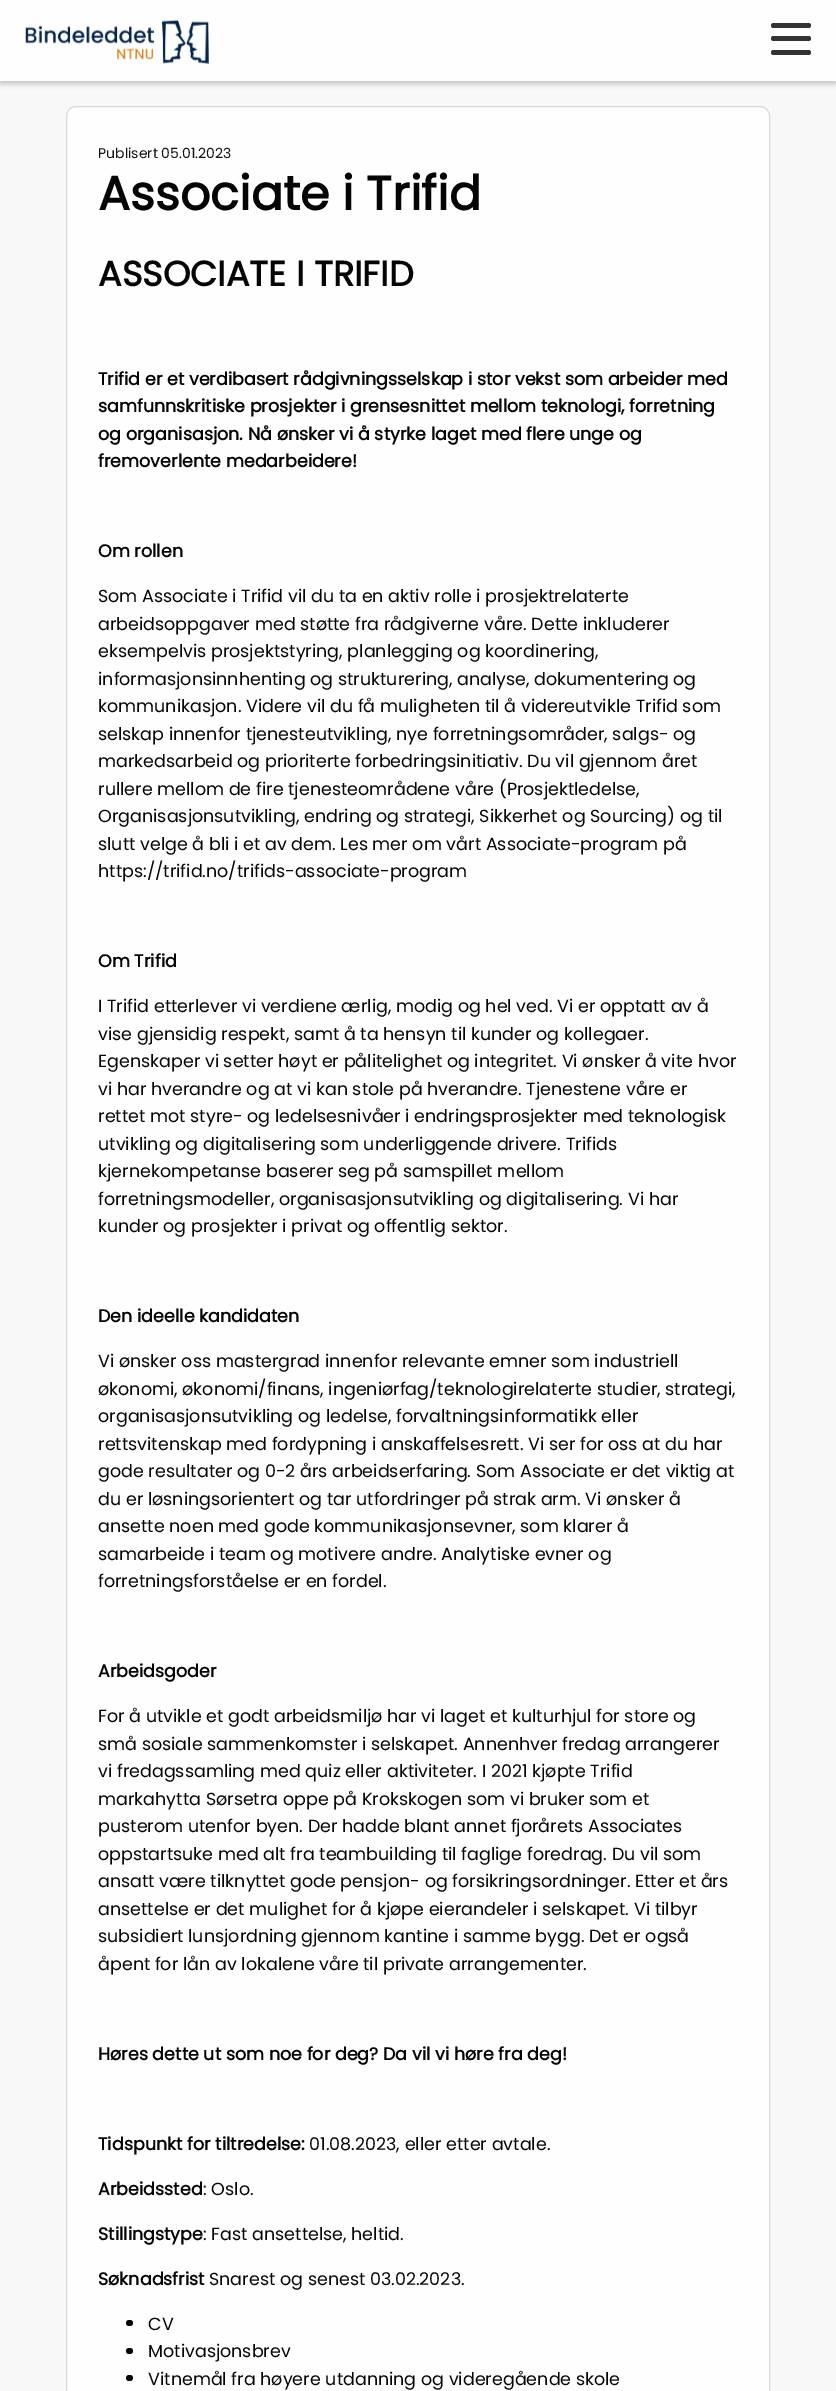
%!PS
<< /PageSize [836 2391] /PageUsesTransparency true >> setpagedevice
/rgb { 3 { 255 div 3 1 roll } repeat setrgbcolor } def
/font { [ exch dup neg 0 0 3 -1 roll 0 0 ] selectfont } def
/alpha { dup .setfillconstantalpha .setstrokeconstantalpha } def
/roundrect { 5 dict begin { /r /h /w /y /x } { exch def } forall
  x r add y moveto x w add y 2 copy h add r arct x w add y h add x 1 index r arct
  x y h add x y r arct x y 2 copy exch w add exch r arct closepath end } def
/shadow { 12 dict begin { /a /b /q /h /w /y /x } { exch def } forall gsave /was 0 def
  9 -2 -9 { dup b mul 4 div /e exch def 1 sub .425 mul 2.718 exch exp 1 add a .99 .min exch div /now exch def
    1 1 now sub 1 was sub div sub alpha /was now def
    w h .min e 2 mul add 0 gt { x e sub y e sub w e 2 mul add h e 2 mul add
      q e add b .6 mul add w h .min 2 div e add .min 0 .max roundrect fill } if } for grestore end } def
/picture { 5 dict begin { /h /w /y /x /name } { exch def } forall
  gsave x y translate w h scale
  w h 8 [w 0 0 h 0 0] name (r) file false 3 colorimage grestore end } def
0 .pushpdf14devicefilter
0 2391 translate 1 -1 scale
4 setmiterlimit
248 248 248 rgb
0 0 836 2391 rectfill
0 0 0 rgb
0 3 836 81 0 2.5 0.2 shadow
254 254 254 rgb
0 0 836 81 rectfill
(img/1.rgb) 25 19 184 45 picture
51 51 51 rgb
771 23 40 5 2.5 roundrect fill
771 36 40 5 2.5 roundrect fill
771 50 40 5 2.5 roundrect fill
254 254 254 rgb
66.5 106.5 703 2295 9.5 roundrect gsave fill grestore
216 216 216 rgb
stroke
5 5 5 rgb
126 2320 7 6 3 roundrect fill
126 2348 7 6 3 roundrect fill
126 2375 7 6 3 roundrect fill
/Poppins-Regular 14 font
20 20 20 rgb
98 158 moveto (Publisert 05.01.2023) show
/Poppins-Bold 47.5 font
5 5 5 rgb
98 210 moveto (Associate i Trifid) show
/Poppins-Bold 35 font
98 286 moveto (ASSOCIATE I TRIFID) show
/Poppins-Bold 17.5 font
[
  [(Trifid er et verdibasert rådgivningsselskap i stor vekst som arbeider med) 98 385]
  [(samfunnskritiske prosjekter i grensesnittet mellom teknologi, forretning) 98 412]
  [(og organisasjon. Nå ønsker vi å styrke laget med flere unge og) 98 440]
  [(fremoverlente medarbeidere!) 98 467]
  [(Om rollen) 98 557]
] { aload pop moveto show } forall
/Poppins-Regular 17.5 font
[
  [(Som Associate i Trifid vil du ta en aktiv rolle i prosjektrelaterte) 98 602]
  [(arbeidsoppgaver med støtte fra rådgiverne våre. Dette inkluderer) 98 630]
  [(eksempelvis prosjektstyring, planlegging og koordinering,) 98 657]
  [(informasjonsinnhenting og strukturering, analyse, dokumentering og) 98 685]
  [(kommunikasjon. Videre vil du få muligheten til å videreutvikle Trifid som) 98 712]
  [(selskap innenfor tjenesteutvikling, nye forretningsområder, salgs- og) 98 740]
  [(markedsarbeid og prioriterte forbedringsinitiativ. Du vil gjennom året) 98 767]
  [(rullere mellom de fire tjenesteområdene våre \(Prosjektledelse,) 98 795]
  [(Organisasjonsutvikling, endring og strategi, Sikkerhet og Sourcing\) og til) 98 822]
  [(slutt velge å bli i et av dem. Les mer om vårt Associate-program på) 98 850]
  [(https://trifid.no/trifids-associate-program) 98 877]
] { aload pop moveto show } forall
/Poppins-Bold 17.5 font
98 967 moveto (Om Trifid) show
/Poppins-Regular 17.5 font
[
  [(I Trifid etterlever vi verdiene ærlig, modig og hel ved. Vi er opptatt av å) 98 1012]
  [(vise gjensidig respekt, samt å ta hensyn til kunder og kollegaer.) 98 1040]
  [(Egenskaper vi setter høyt er pålitelighet og integritet. Vi ønsker å vite hvor) 98 1067]
  [(vi har hverandre og at vi kan stole på hverandre. Tjenestene våre er) 98 1095]
  [(rettet mot styre- og ledelsesnivåer i endringsprosjekter med teknologisk) 98 1122]
  [(utvikling og digitalisering som underliggende drivere. Trifids) 98 1150]
  [(kjernekompetanse baserer seg på samspillet mellom) 98 1177]
  [(forretningsmodeller, organisasjonsutvikling og digitalisering. Vi har) 98 1205]
  [(kunder og prosjekter i privat og offentlig sektor.) 98 1232]
] { aload pop moveto show } forall
/Poppins-Bold 17.5 font
98 1322 moveto (Den ideelle kandidaten) show
/Poppins-Regular 17.5 font
[
  [(Vi ønsker oss mastergrad innenfor relevante emner som industriell) 98 1367]
  [(økonomi, økonomi/finans, ingeniørfag/teknologirelaterte studier, strategi,) 98 1395]
  [(organisasjonsutvikling og ledelse, forvaltningsinformatikk eller) 98 1422]
  [(rettsvitenskap med fordypning i anskaffelsesrett. Vi ser for oss at du har) 98 1450]
  [(gode resultater og 0-2 års arbeidserfaring. Som Associate er det viktig at) 98 1477]
  [(du er løsningsorientert og tar utfordringer på strak arm. Vi ønsker å) 98 1505]
  [(ansette noen med gode kommunikasjonsevner, som klarer å) 98 1532]
  [(samarbeide i team og motivere andre. Analytiske evner og) 98 1560]
  [(forretningsforståelse er en fordel.) 98 1587]
] { aload pop moveto show } forall
/Poppins-Bold 17.5 font
98 1677 moveto (Arbeidsgoder) show
/Poppins-Regular 17.5 font
[
  [(For å utvikle et godt arbeidsmiljø har vi laget et kulturhjul for store og) 98 1722]
  [(små sosiale sammenkomster i selskapet. Annenhver fredag arrangerer) 98 1750]
  [(vi fredagssamling med quiz eller aktiviteter. I 2021 kjøpte Trifid) 98 1777]
  [(markahytta Sørsetra oppe på Krokskogen som vi bruker som et) 98 1805]
  [(pusterom utenfor byen. Der hadde blant annet fjorårets Associates) 98 1832]
  [(oppstartsuke med alt fra teambuilding til faglige foredrag. Du vil som) 98 1860]
  [(ansatt være tilknyttet gode pensjon- og forsikringsordninger. Etter et års) 98 1887]
  [(ansettelse er det mulighet for å kjøpe eierandeler i selskapet. Vi tilbyr) 98 1915]
  [(subsidiert lunsjordning gjennom kantine i samme bygg. Det er også) 98 1942]
  [(åpent for lån av lokalene våre til private arrangementer.) 98 1970]
] { aload pop moveto show } forall
/Poppins-Bold 17.5 font
98 2060 moveto (Høres dette ut som noe for deg? Da vil vi høre fra deg!) show
98 2150 moveto (Tidspunkt for tiltredelse:) show
/Poppins-Regular 17.5 font
309 2150 moveto (01.08.2023, eller etter avtale.) show
/Poppins-Bold 17.5 font
98 2195 moveto (Arbeidssted) show
/Poppins-Regular 17.5 font
203 2195 moveto (: Oslo.) show
/Poppins-Bold 17.5 font
98 2240 moveto (Stillingstype) show
/Poppins-Regular 17.5 font
203 2240 moveto (: Fast ansettelse, heltid.) show
/Poppins-Bold 17.5 font
98 2285 moveto (Søknadsfrist) show
/Poppins-Regular 17.5 font
[
  [(Snarest og senest 03.02.2023.) 209 2285]
  [(CV) 148 2330]
  [(Motivasjonsbrev) 148 2357]
  [(Vitnemål fra høyere utdanning og videregående skole) 148 2385]
] { aload pop moveto show } forall
.poppdf14devicefilter showpage
